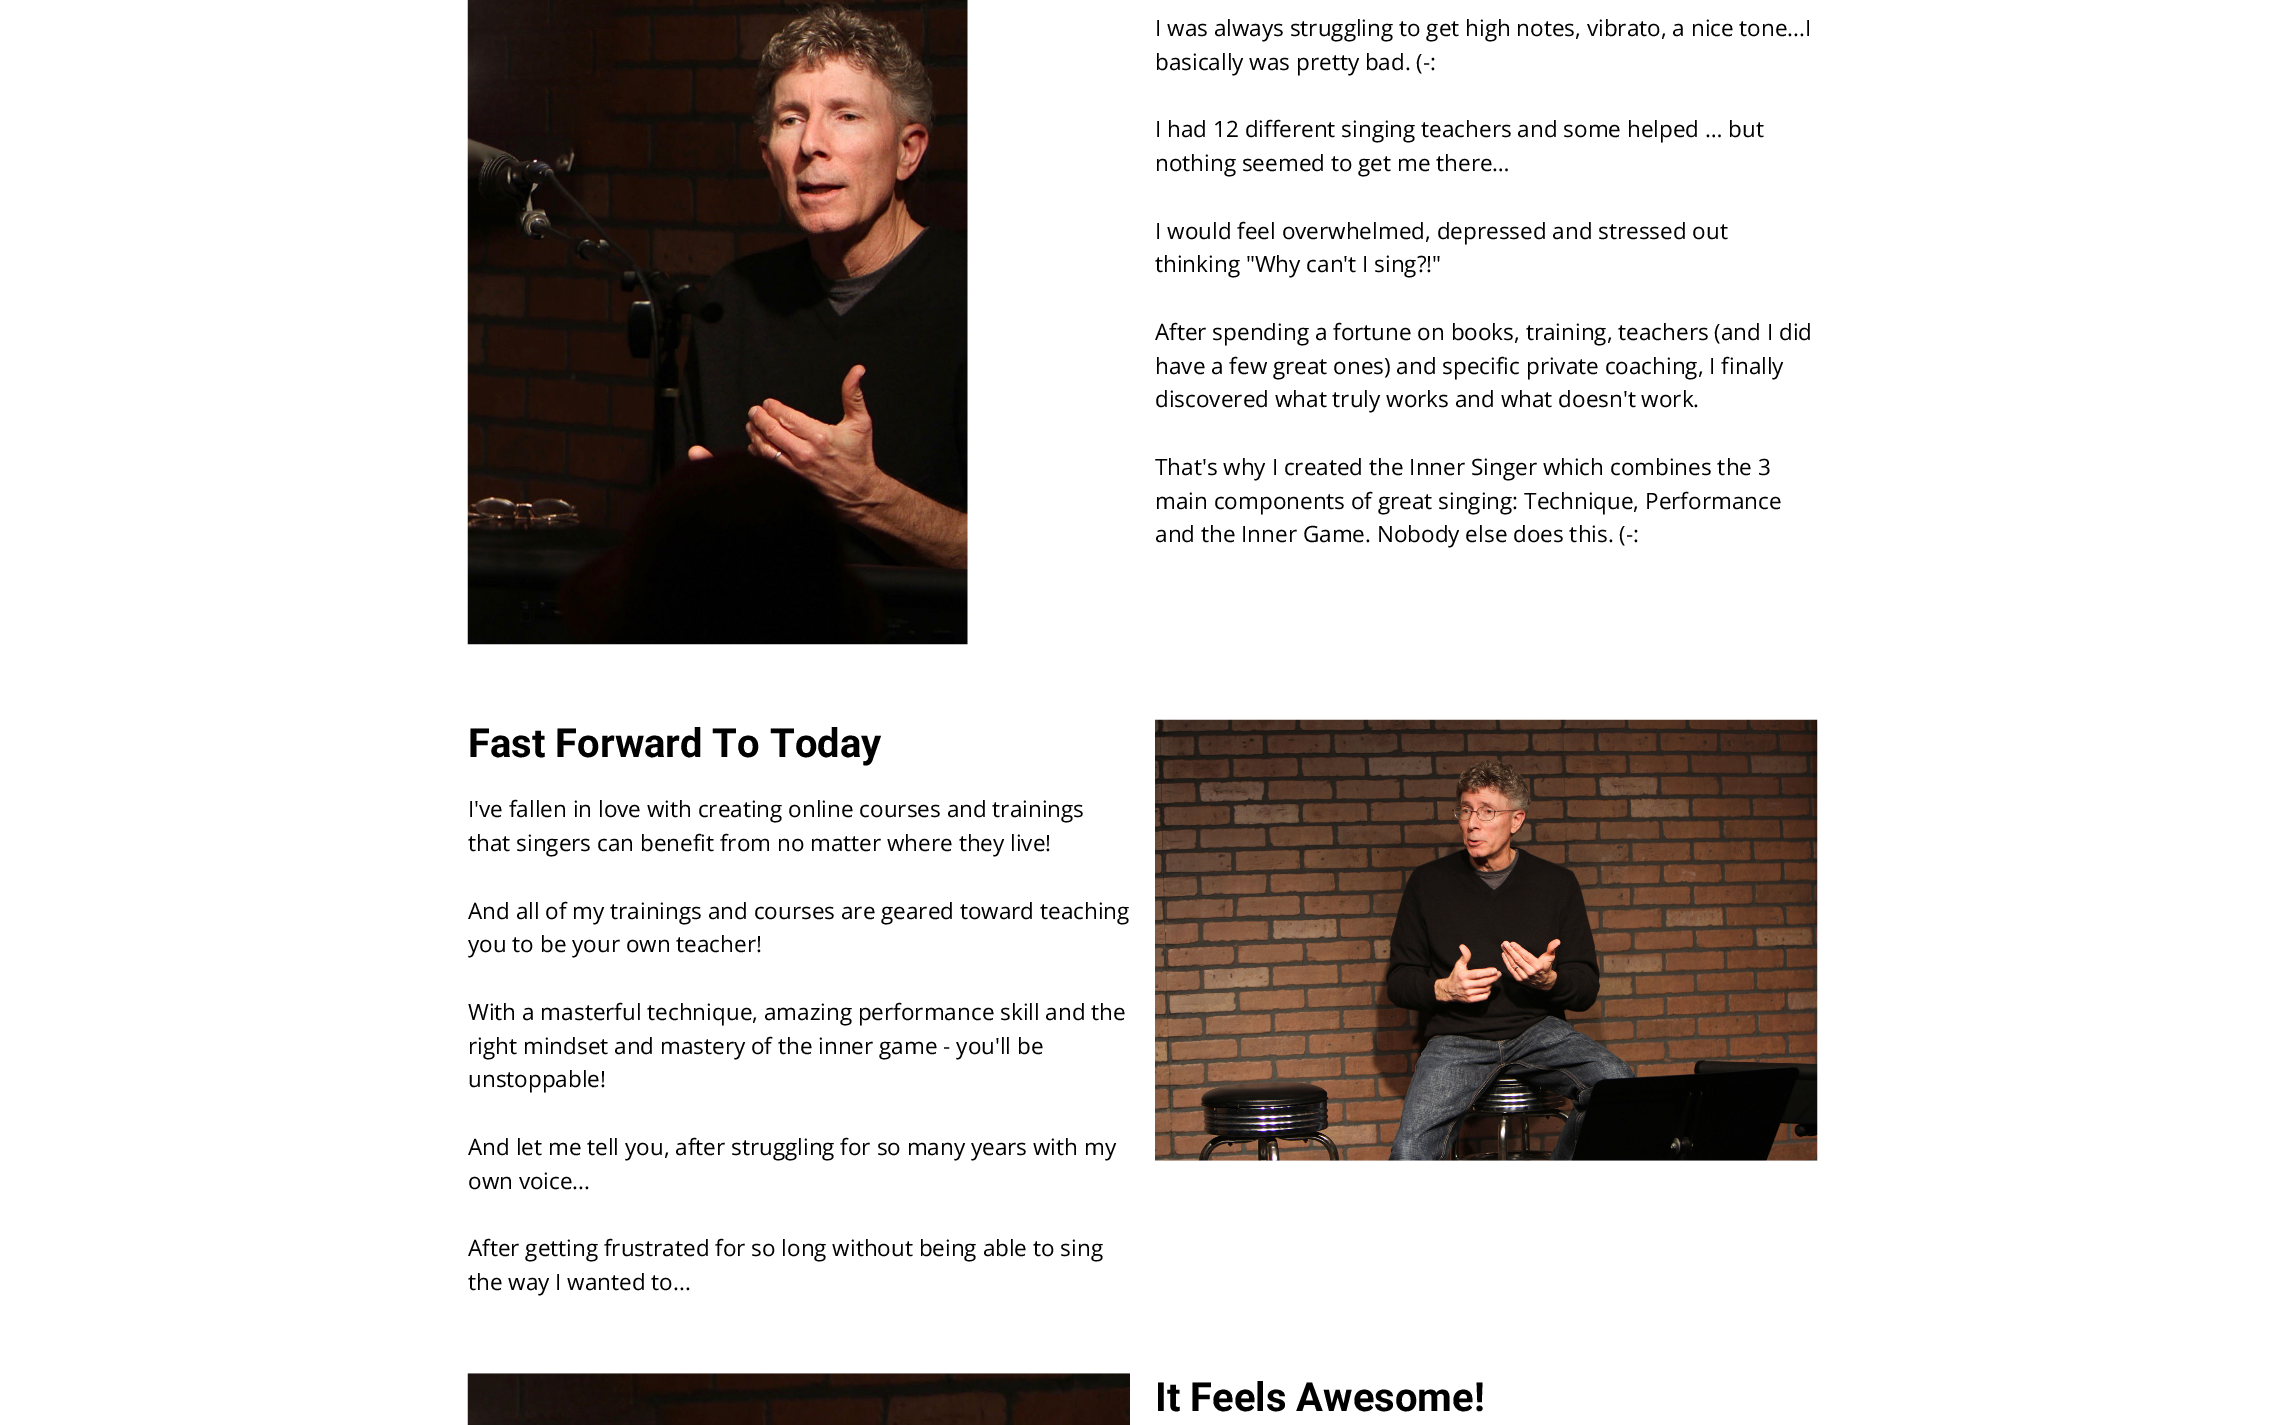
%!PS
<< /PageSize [2284 1425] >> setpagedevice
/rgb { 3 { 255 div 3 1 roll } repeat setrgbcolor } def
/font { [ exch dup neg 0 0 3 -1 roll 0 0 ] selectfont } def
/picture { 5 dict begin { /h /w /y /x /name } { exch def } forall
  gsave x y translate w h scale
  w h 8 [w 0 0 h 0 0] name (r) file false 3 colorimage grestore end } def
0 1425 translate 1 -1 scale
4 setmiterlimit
255 255 255 rgb
0 0 2284 1425 rectfill
(img/1.rgb) 467 0 501 645 picture
(img/2.rgb) 1155 719 663 442 picture
(img/3.rgb) 467 1373 663 52 picture
/OpenSans-Regular 22.5 font
0 0 0 rgb
[
  [(I was always struggling to get high notes, vibrato, a nice tone...I) 1155 36]
  [(basically was pretty bad. \(-:) 1155 70]
  [(I had 12 different singing teachers and some helped … but) 1155 137]
  [(nothing seemed to get me there…) 1155 171]
  [(I would feel overwhelmed, depressed and stressed out) 1155 239]
  [(thinking "Why can't I sing?!") 1155 272]
  [(After spending a fortune on books, training, teachers \(and I did) 1155 340]
  [(have a few great ones\) and specific private coaching, I finally) 1155 374]
  [(discovered what truly works and what doesn't work.) 1155 407]
  [(That's why I created the Inner Singer which combines the 3) 1155 475]
  [(main components of great singing: Technique, Performance) 1155 509]
  [(and the Inner Game. Nobody else does this. \(-:) 1155 542]
] { aload pop moveto show } forall
/Roboto-Bold 40 font
468 757 moveto (Fast Forward To Today) show
/OpenSans-Regular 22.5 font
[
  [(I've fallen in love with creating online courses and trainings) 468 817]
  [(that singers can benefit from no matter where they live!) 468 851]
  [(And all of my trainings and courses are geared toward teaching) 468 919]
  [(you to be your own teacher!) 468 952]
  [(With a masterful technique, amazing performance skill and the) 468 1020]
  [(right mindset and mastery of the inner game - you'll be) 468 1054]
  [(unstoppable!) 468 1087]
  [(And let me tell you, after struggling for so many years with my) 468 1155]
  [(own voice...) 468 1189]
  [(After getting frustrated for so long without being able to sing) 468 1256]
  [(the way I wanted to...) 468 1290]
] { aload pop moveto show } forall
/Roboto-Bold 40 font
1155 1411 moveto (It Feels Awesome!) show
showpage
